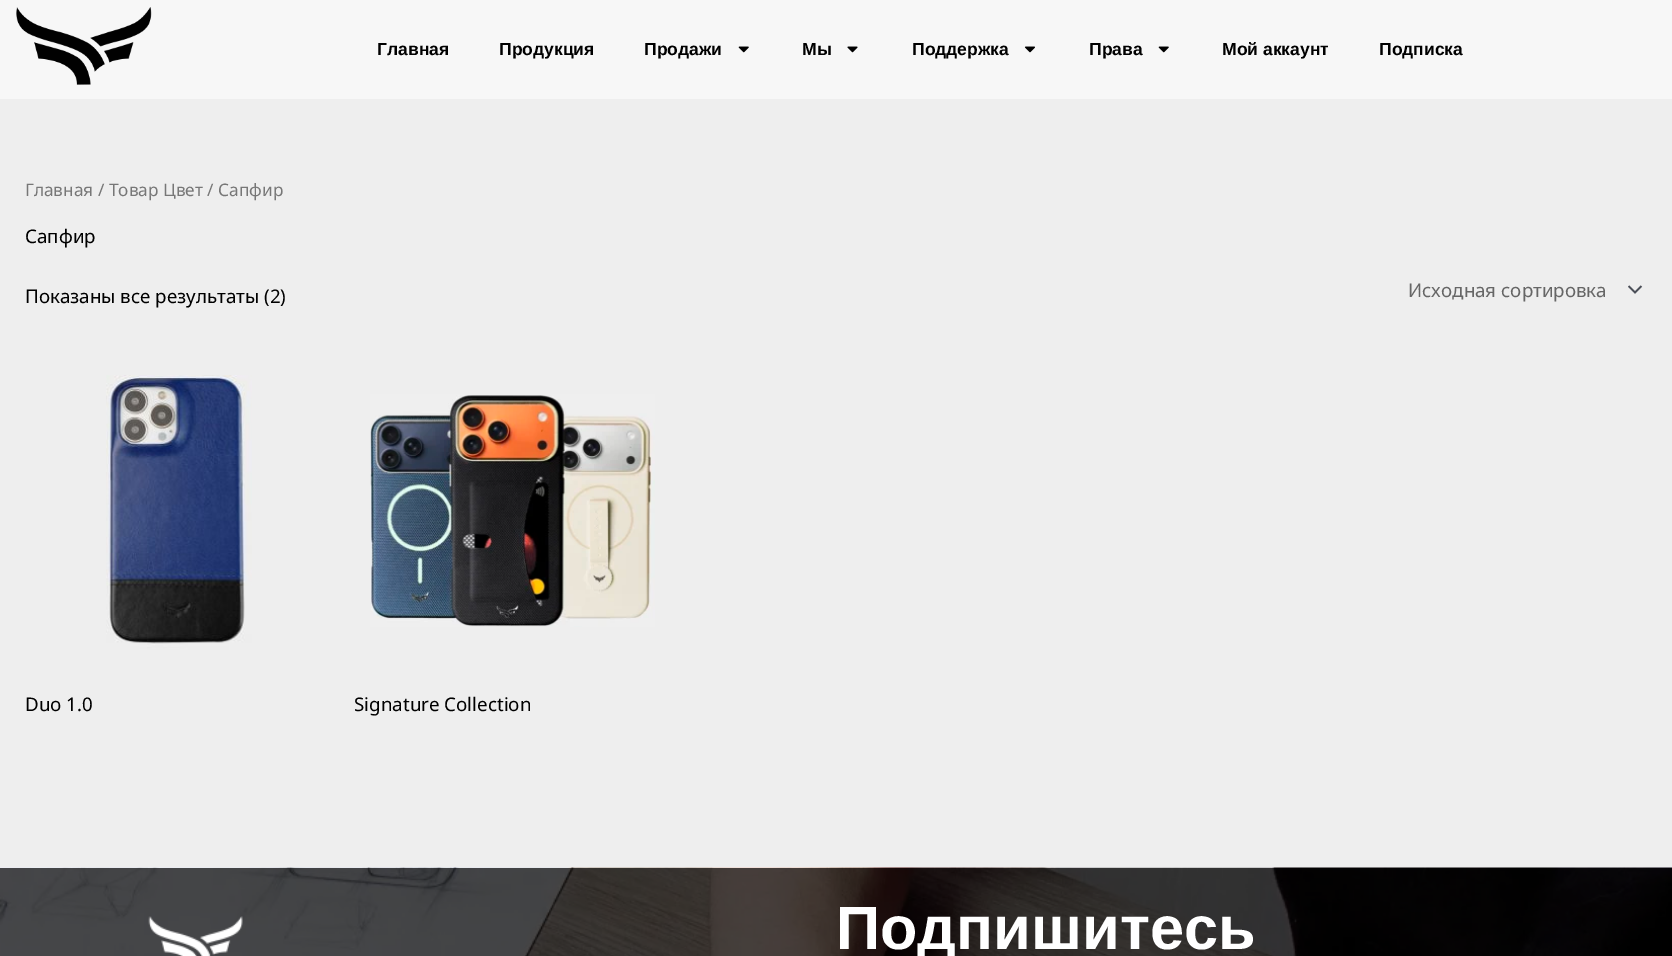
%!PS
<< /PageSize [1672 956] >> setpagedevice
/rgb { 3 { 255 div 3 1 roll } repeat setrgbcolor } def
/font { [ exch dup neg 0 0 3 -1 roll 0 0 ] selectfont } def
/picture { 5 dict begin { /h /w /y /x /name } { exch def } forall
  gsave x y translate w h scale
  w h 8 [w 0 0 h 0 0] name (r) file false 3 colorimage grestore end } def
0 956 translate 1 -1 scale
4 setmiterlimit
238 238 238 rgb
0 0 1672 956 rectfill
247 247 247 rgb
0 0 1672 99 rectfill
(img/1.rgb) 16 7 136 78 picture
(img/2.rgb) 738 46 11 7 picture
(img/3.rgb) 847 46 11 7 picture
(img/4.rgb) 1024 46 11 7 picture
(img/2.rgb) 1158 46 11 7 picture
(img/5.rgb) 1628 285 15 9 picture
(img/6.rgb) 106 375 146 275 picture
(img/7.rgb) 370 394 285 233 picture
(img/8.rgb) 0 867 1672 89 picture
(img/9.rgb) 148 916 95 40 picture
/LiberationSans-Bold 17.5 font
0 0 0 rgb
[
  [(Главная) 377 55]
  [(Продукция) 499 55]
  [(Продажи) 644 55]
  [(Мы) 802 55]
  [(Поддержка) 912 55]
  [(Права) 1089 55]
  [(Мой аккаунт) 1222 55]
  [(Подписка) 1379 55]
] { aload pop moveto show } forall
/NotoSans-Regular 17.25 font
119 119 119 rgb
25 196 moveto (Главная / Товар Цвет / Сапфир) show
/NotoSans-Regular 18.75 font
0 0 0 rgb
25 243 moveto (Сапфир) show
25 303 moveto (Показаны все результаты \(2\)) show
102 102 102 rgb
1408 297 moveto (Исходная сортировка) show
0 0 0 rgb
25 711 moveto (Duo 1.0) show
354 711 moveto (Signature Collection) show
/LiberationSans-Bold 61.25 font
255 255 255 rgb
836 949 moveto (Подпишитесь) show
showpage
